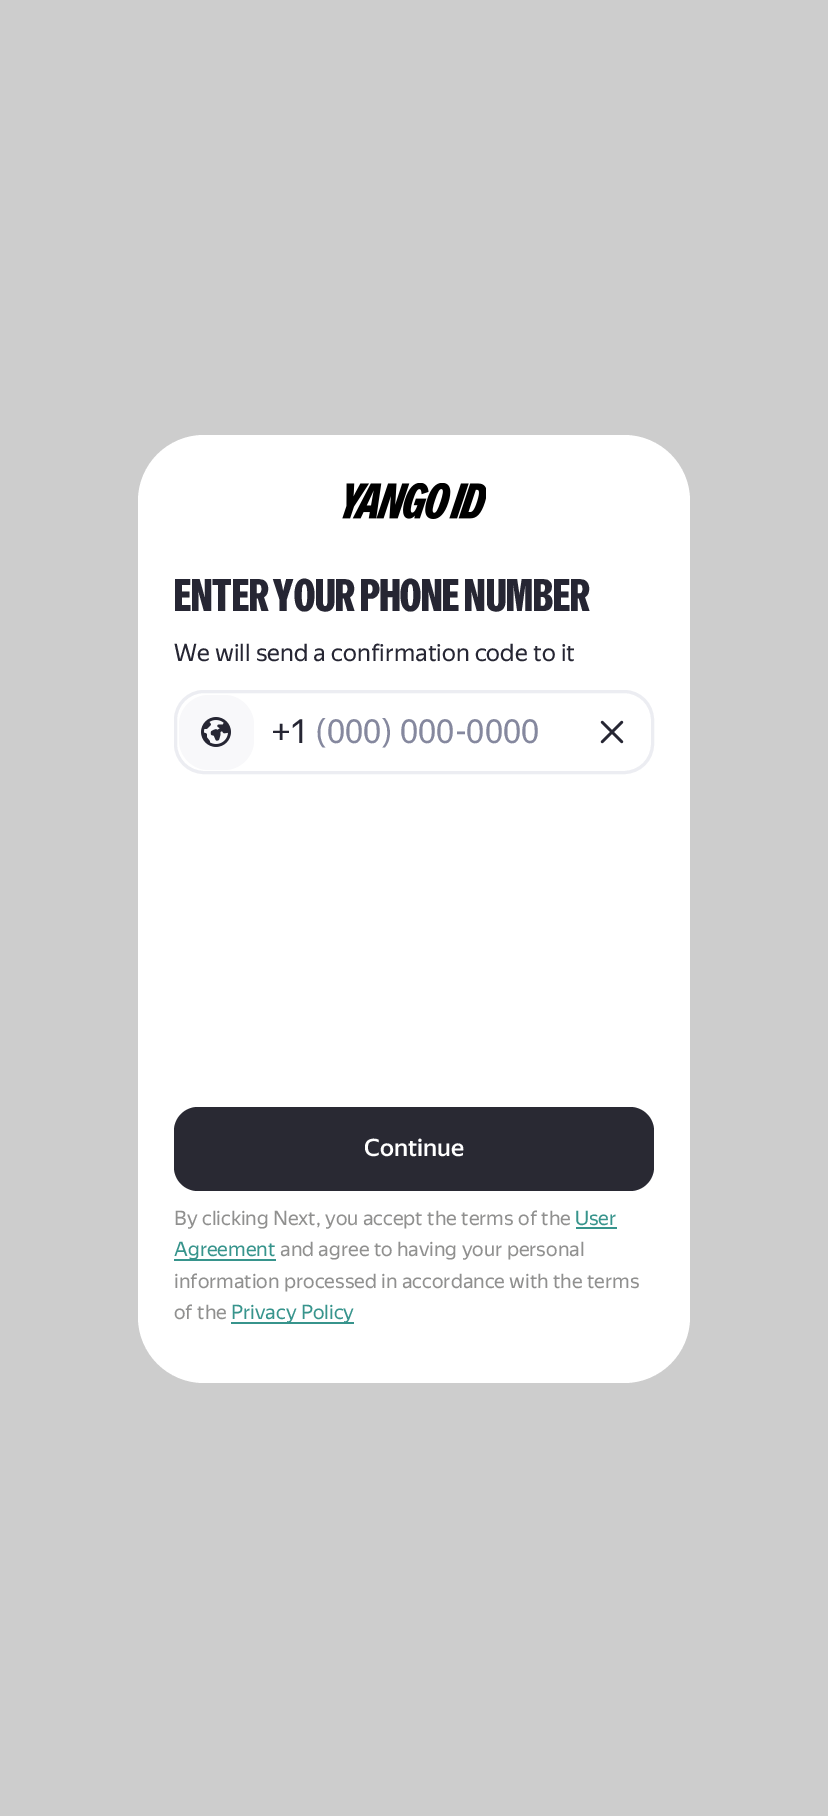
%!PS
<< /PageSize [828 1816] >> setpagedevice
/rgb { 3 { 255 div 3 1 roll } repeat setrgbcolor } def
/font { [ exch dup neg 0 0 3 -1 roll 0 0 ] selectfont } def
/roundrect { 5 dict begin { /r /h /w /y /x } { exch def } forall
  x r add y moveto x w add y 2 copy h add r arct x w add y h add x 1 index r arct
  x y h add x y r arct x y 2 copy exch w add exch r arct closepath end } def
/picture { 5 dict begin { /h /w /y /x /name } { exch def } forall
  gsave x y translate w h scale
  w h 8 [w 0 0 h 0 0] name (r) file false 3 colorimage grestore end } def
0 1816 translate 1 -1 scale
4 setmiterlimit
205 205 205 rgb
0 0 828 1816 rectfill
255 255 255 rgb
138 435 552 948 66 roundrect fill
(img/1.rgb) 342 483 144 36 picture
236 237 242 rgb
3 setlinewidth
175.5 691.5 477 81 28.5 roundrect stroke
248 248 250 rgb
179 695 75 75 30 roundrect fill
(img/2.rgb) 201 717 30 30 picture
(img/3.rgb) 600 720 24 24 picture
41 41 51 rgb
174 1107 480 84 24 roundrect fill
[
  [576 1227 41 2 55 148 140]
  [174 1259 102 2 55 148 140]
  [231 1322 123 2 55 148 140]
] { aload pop rgb rectfill } forall
/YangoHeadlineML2-Black 45 font
38 38 51 rgb
174 611 moveto (ENTER YOUR PHONE NUMBER) show
/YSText-Regular 24 font
174 661 moveto (We will send a confirmation code to it) show
/YSText-Regular 33 font
272 743 moveto (+1) show
133 136 158 rgb
315 743 moveto (\(000\) 000-0000) show
gsave
365 1134 99 30 rectclip
/YSText-Medium 24 font
255 255 255 rgb
364 1156 moveto (Continue) show
grestore
/YSText-Regular 20 font
144 144 143 rgb
174 1225 moveto (By clicking Next, you accept the terms of the) show
55 148 140 rgb
575 1225 moveto (User) show
174 1256 moveto (Agreement) show
144 144 143 rgb
[
  [(and agree to having your personal) 280 1256]
  [(information processed in accordance with the terms) 174 1288]
  [(of the) 174 1319]
] { aload pop moveto show } forall
55 148 140 rgb
231 1319 moveto (Privacy Policy) show
showpage
